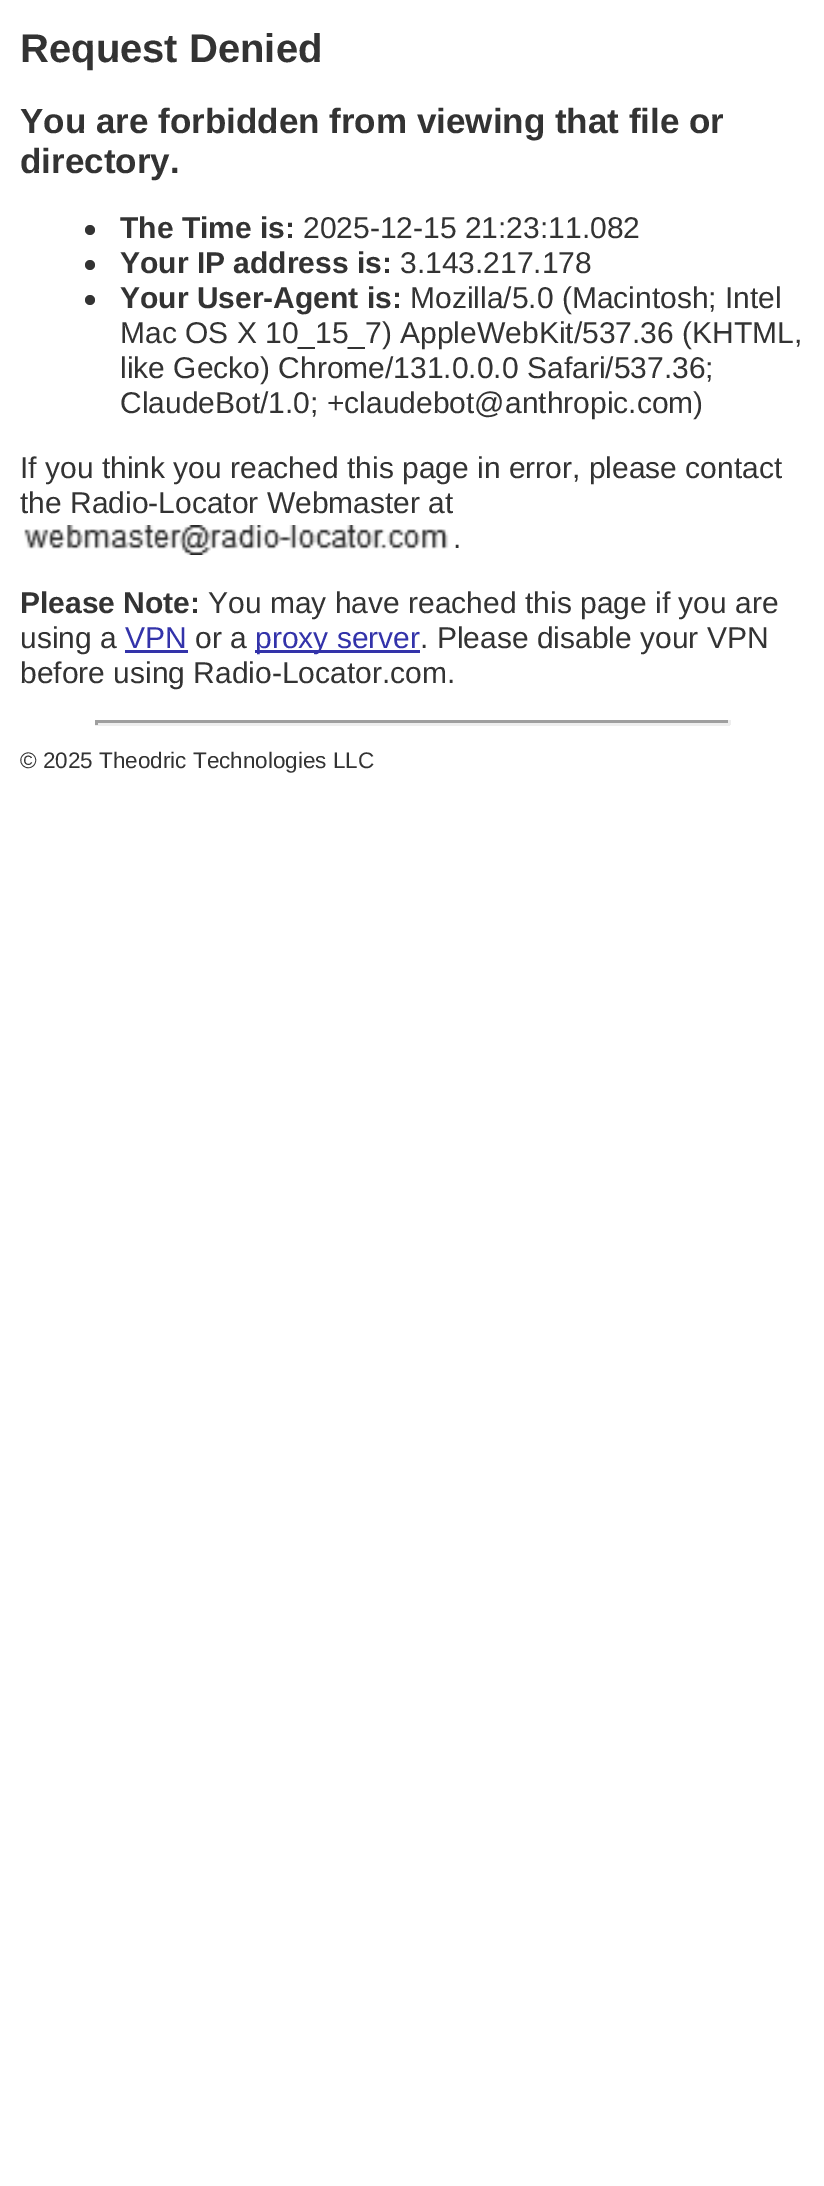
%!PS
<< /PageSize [824 2186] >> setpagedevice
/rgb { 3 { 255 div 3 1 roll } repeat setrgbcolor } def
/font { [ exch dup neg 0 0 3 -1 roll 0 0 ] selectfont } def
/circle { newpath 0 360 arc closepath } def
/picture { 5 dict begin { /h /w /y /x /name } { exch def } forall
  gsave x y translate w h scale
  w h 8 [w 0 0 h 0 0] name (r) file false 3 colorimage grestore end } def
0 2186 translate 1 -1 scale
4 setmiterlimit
255 255 255 rgb
0 0 824 2186 rectfill
51 51 51 rgb
90 230 5 circle fill
90 265 5 circle fill
90 300 5 circle fill
(img/1.rgb) 24 525 425 30 picture
[
  [125 650 63 3 51 51 170]
  [255 650 165 3 51 51 170]
  [95 720 635 3 159 159 159]
  [728 720 3 5 238 238 238]
  [95 723 635 3 238 238 238]
  [95 720 3 5 159 159 159]
] { aload pop rgb rectfill } forall
/LiberationSans-Bold 40 font
51 51 51 rgb
20 62 moveto (Request Denied) show
/LiberationSans-Bold 35 font
20 133 moveto (You are forbidden from viewing that file or) show
20 173 moveto (directory.) show
/LiberationSans-Bold 30 font
120 238 moveto (The Time is:) show
/LiberationSans-Regular 30 font
303 238 moveto (2025-12-15 21:23:11.082) show
/LiberationSans-Bold 30 font
120 273 moveto (Your IP address is:) show
/LiberationSans-Regular 30 font
400 273 moveto (3.143.217.178) show
/LiberationSans-Bold 30 font
120 308 moveto (Your User-Agent is:) show
/LiberationSans-Regular 30 font
[
  [(Mozilla/5.0 \(Macintosh; Intel) 410 308]
  [(Mac OS X 10_15_7\) AppleWebKit/537.36 \(KHTML,) 120 343]
  [(like Gecko\) Chrome/131.0.0.0 Safari/537.36;) 120 378]
  [(ClaudeBot/1.0; +claudebot@anthropic.com\)) 120 413]
  [(If you think you reached this page in error, please contact) 20 478]
  [(the Radio-Locator Webmaster at) 20 513]
  [(.) 453 548]
] { aload pop moveto show } forall
/LiberationSans-Bold 30 font
20 613 moveto (Please Note:) show
/LiberationSans-Regular 30 font
208 613 moveto (You may have reached this page if you are) show
20 648 moveto (using a) show
51 51 170 rgb
125 648 moveto (VPN) show
51 51 51 rgb
195 648 moveto (or a) show
51 51 170 rgb
255 648 moveto (proxy server) show
51 51 51 rgb
420 648 moveto (. Please disable your VPN) show
20 683 moveto (before using Radio-Locator.com.) show
/LiberationSans-Regular 22.5 font
20 768 moveto (© 2025 Theodric Technologies LLC) show
showpage
